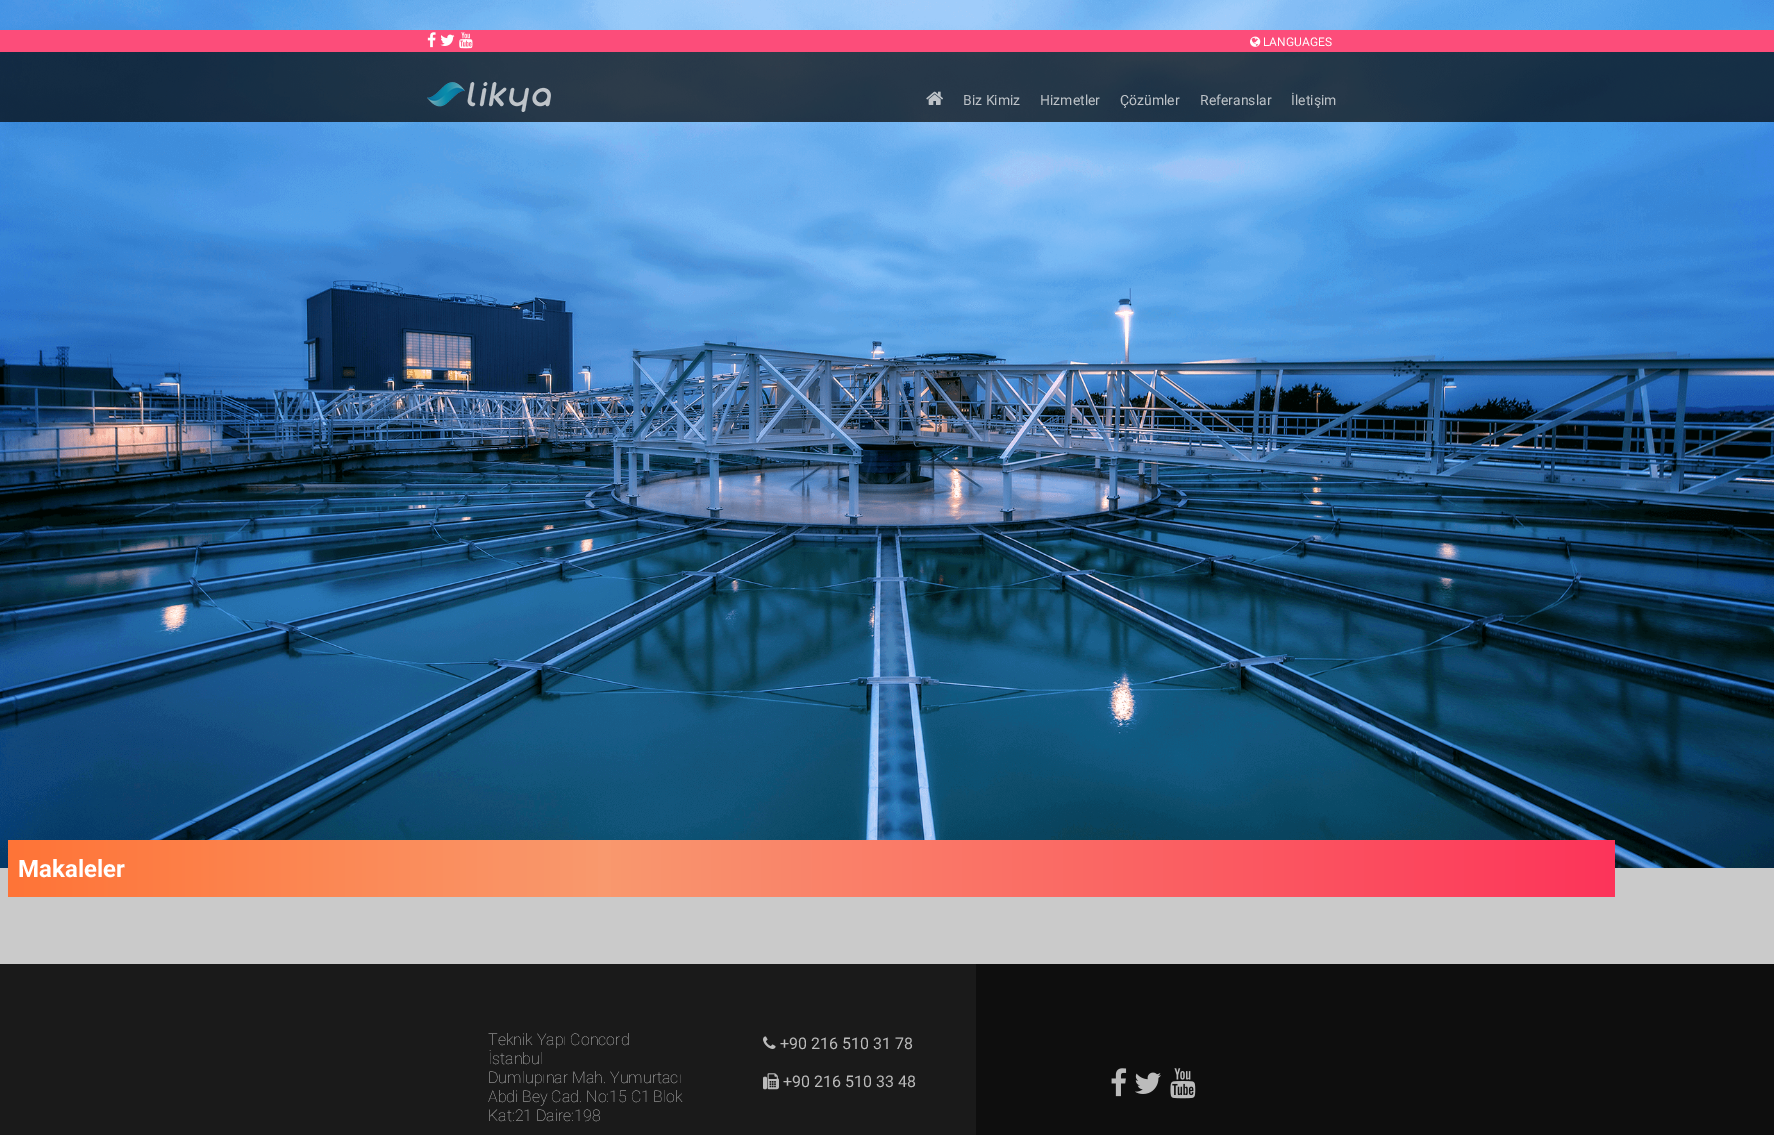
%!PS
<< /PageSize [1774 1135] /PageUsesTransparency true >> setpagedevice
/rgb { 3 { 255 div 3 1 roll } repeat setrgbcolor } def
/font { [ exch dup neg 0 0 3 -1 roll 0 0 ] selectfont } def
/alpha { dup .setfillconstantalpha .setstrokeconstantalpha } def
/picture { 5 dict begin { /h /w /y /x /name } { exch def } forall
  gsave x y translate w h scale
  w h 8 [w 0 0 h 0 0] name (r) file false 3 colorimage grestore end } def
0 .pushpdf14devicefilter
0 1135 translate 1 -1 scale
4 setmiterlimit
202 202 202 rgb
0 0 1774 1135 rectfill
(img/1.rgb) 0 0 1774 868 picture
252 77 122 rgb
0 30 1774 22 rectfill
(img/2.rgb) 427 32 9 16 picture
(img/3.rgb) 440 34 15 12 picture
(img/4.rgb) 459 32 14 17 picture
(img/5.rgb) 1250 36 11 11 picture
0.7 alpha
0 0 0 rgb
0 52 1774 70 rectfill
1 alpha
(img/6.rgb) 427 82 124 30 picture
(img/7.rgb) 926 91 17 14 picture
gsave 8 840 moveto 1615 840 lineto 1615 897 lineto 8 897 lineto closepath clip newpath
<< /ShadingType 2 /ColorSpace /DeviceRGB /Coords [8 869 1615 869] /Extend [true true] /Function << /FunctionType 3 /Domain [0 1] /Functions [<< /FunctionType 2 /Domain [0 1] /C0 [1 0.455 0.216] /C1 [0.976 0.6 0.431] /N 1 >> << /FunctionType 2 /Domain [0 1] /C0 [0.976 0.6 0.431] /C1 [0.992 0.204 0.353] /N 1 >>] /Bounds [0.37] /Encode [0 1 0 1] >> >> shfill grestore
26 26 26 rgb
0 964 976 171 rectfill
(img/8.rgb) 763 1036 13 13 picture
(img/9.rgb) 763 1073 16 17 picture
14 14 14 rgb
976 964 798 171 rectfill
(img/10.rgb) 1111 1068 16 29 picture
(img/11.rgb) 1135 1072 26 22 picture
(img/12.rgb) 1170 1068 26 31 picture
/Roboto-Regular 12 font
255 255 255 rgb
1263 46 moveto (LANGUAGES) show
/Roboto-Regular 14 font
190 195 200 rgb
[
  [(Biz Kimiz) 963 105]
  [(Hizmetler) 1040 105]
  [(Çözümler) 1120 105]
  [(Referanslar) 1200 105]
  [(İletişim) 1291 105]
] { aload pop moveto show } forall
/Roboto-Bold 24 font
255 255 255 rgb
18 877 moveto (Makaleler) show
/Roboto-Thin 16 font
187 187 187 rgb
[
  [(Teknik Yapı Concord) 488 1045]
  [(İstanbul) 488 1064]
  [(Dumlupınar Mah. Yumurtacı) 488 1083]
  [(Abdi Bey Cad. No:15 C1 Blok) 488 1102]
  [(Kat:21 Daire:198) 488 1121]
] { aload pop moveto show } forall
/Roboto-Regular 16 font
780 1049 moveto (+90 216 510 31 78) show
783 1087 moveto (+90 216 510 33 48) show
.poppdf14devicefilter showpage
